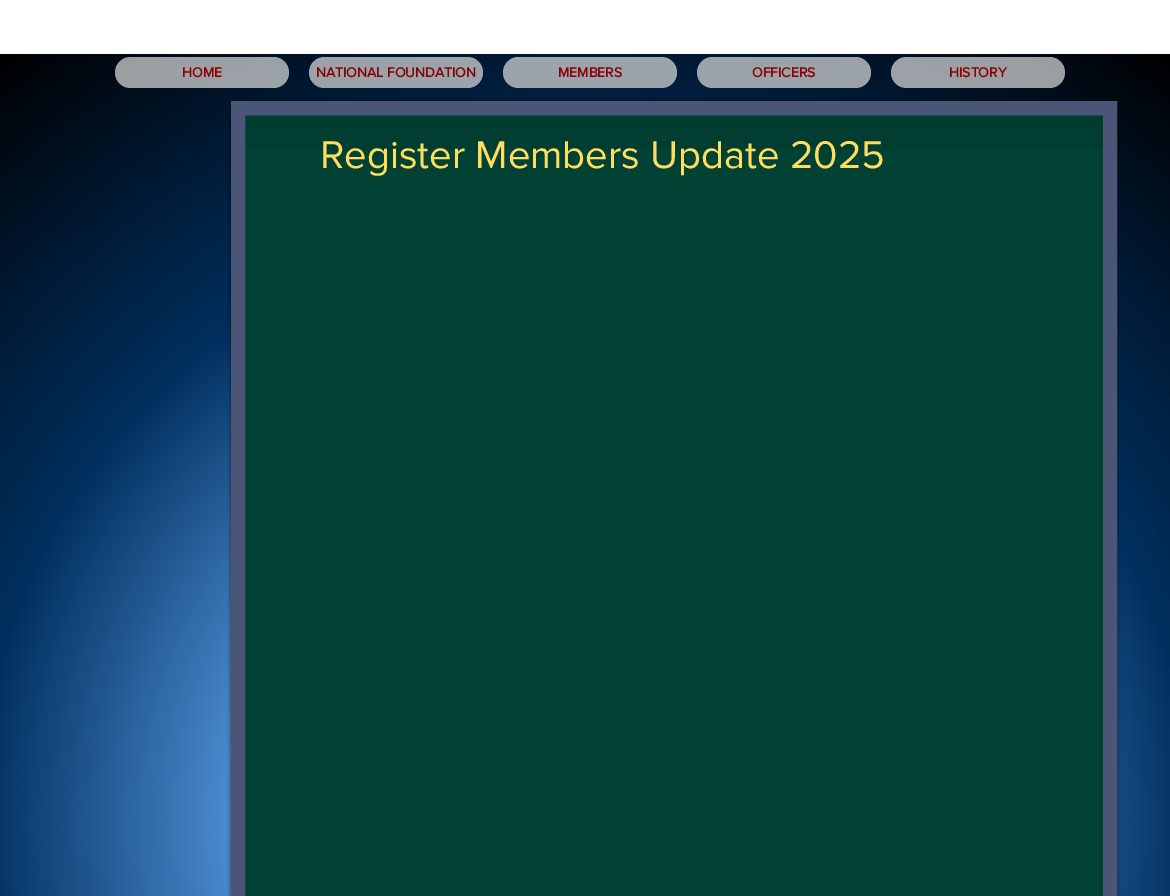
%!PS
<< /PageSize [1170 896] /PageUsesTransparency true >> setpagedevice
/rgb { 3 { 255 div 3 1 roll } repeat setrgbcolor } def
/font { [ exch dup neg 0 0 3 -1 roll 0 0 ] selectfont } def
/alpha { dup .setfillconstantalpha .setstrokeconstantalpha } def
/roundrect { 5 dict begin { /r /h /w /y /x } { exch def } forall
  x r add y moveto x w add y 2 copy h add r arct x w add y h add x 1 index r arct
  x y h add x y r arct x y 2 copy exch w add exch r arct closepath end } def
/shadow { 12 dict begin { /a /b /q /h /w /y /x } { exch def } forall gsave /was 0 def
  9 -2 -9 { dup b mul 4 div /e exch def 1 sub .425 mul 2.718 exch exp 1 add a .99 .min exch div /now exch def
    1 1 now sub 1 was sub div sub alpha /was now def
    w h .min e 2 mul add 0 gt { x e sub y e sub w e 2 mul add h e 2 mul add
      q e add b .6 mul add w h .min 2 div e add .min 0 .max roundrect fill } if } for grestore end } def
/picture { 5 dict begin { /h /w /y /x /name } { exch def } forall
  gsave x y translate w h scale
  w h 8 [w 0 0 h 0 0] name (r) file false 3 colorimage grestore end } def
0 .pushpdf14devicefilter
0 896 translate 1 -1 scale
4 setmiterlimit
255 255 255 rgb
0 0 1170 896 rectfill
gsave 0 54 moveto 1170 54 lineto 1170 896 lineto 0 896 lineto closepath clip newpath 585 822 translate 965 965 scale
<< /ShadingType 3 /ColorSpace /DeviceRGB /Coords [0 0 0 0 0 1] /Extend [true true] /Function << /FunctionType 3 /Domain [0 1] /Functions [<< /FunctionType 2 /Domain [0 1] /C0 [0.894 0.922 0.988] /C1 [0.345 0.608 0.89] /N 1 >> << /FunctionType 2 /Domain [0 1] /C0 [0.345 0.608 0.89] /C1 [0 0.184 0.369] /N 1 >> << /FunctionType 2 /Domain [0 1] /C0 [0 0.184 0.369] /C1 [0 0 0] /N 1 >>] /Bounds [0.32 0.63] /Encode [0 1 0 1 0 1] >> >> shfill grestore
0.71 alpha
219 219 219 rgb
115 57 174 31 15.5 roundrect fill
309 57 174 31 15.5 roundrect fill
503 57 174 31 15.5 roundrect fill
697 57 174 31 15.5 roundrect fill
891 57 174 31 15.5 roundrect fill
1 alpha
0 0 0 rgb
231 101 886 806 5 2 0.6 shadow
1 66 53 rgb
245 115 858 781 rectfill
(img/1.rgb) 245 117 858 33 picture
75 86 118 rgb
14 setlinewidth
238 108 moveto 1110 108 lineto 1110 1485 lineto 238 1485 lineto closepath stroke
/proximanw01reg-Bold 14 font
139 0 0 rgb
[
  [(HOME) 182 77]
  [(NATIONAL FOUNDATION) 316 77]
  [(MEMBERS) 558 77]
  [(OFFICERS) 752 77]
  [(HISTORY) 949 77]
] { aload pop moveto show } forall
/proximanw01reg-Regular 40 font
255 222 95 rgb
320 168 moveto (Register Members Update 2025) show
.poppdf14devicefilter showpage
